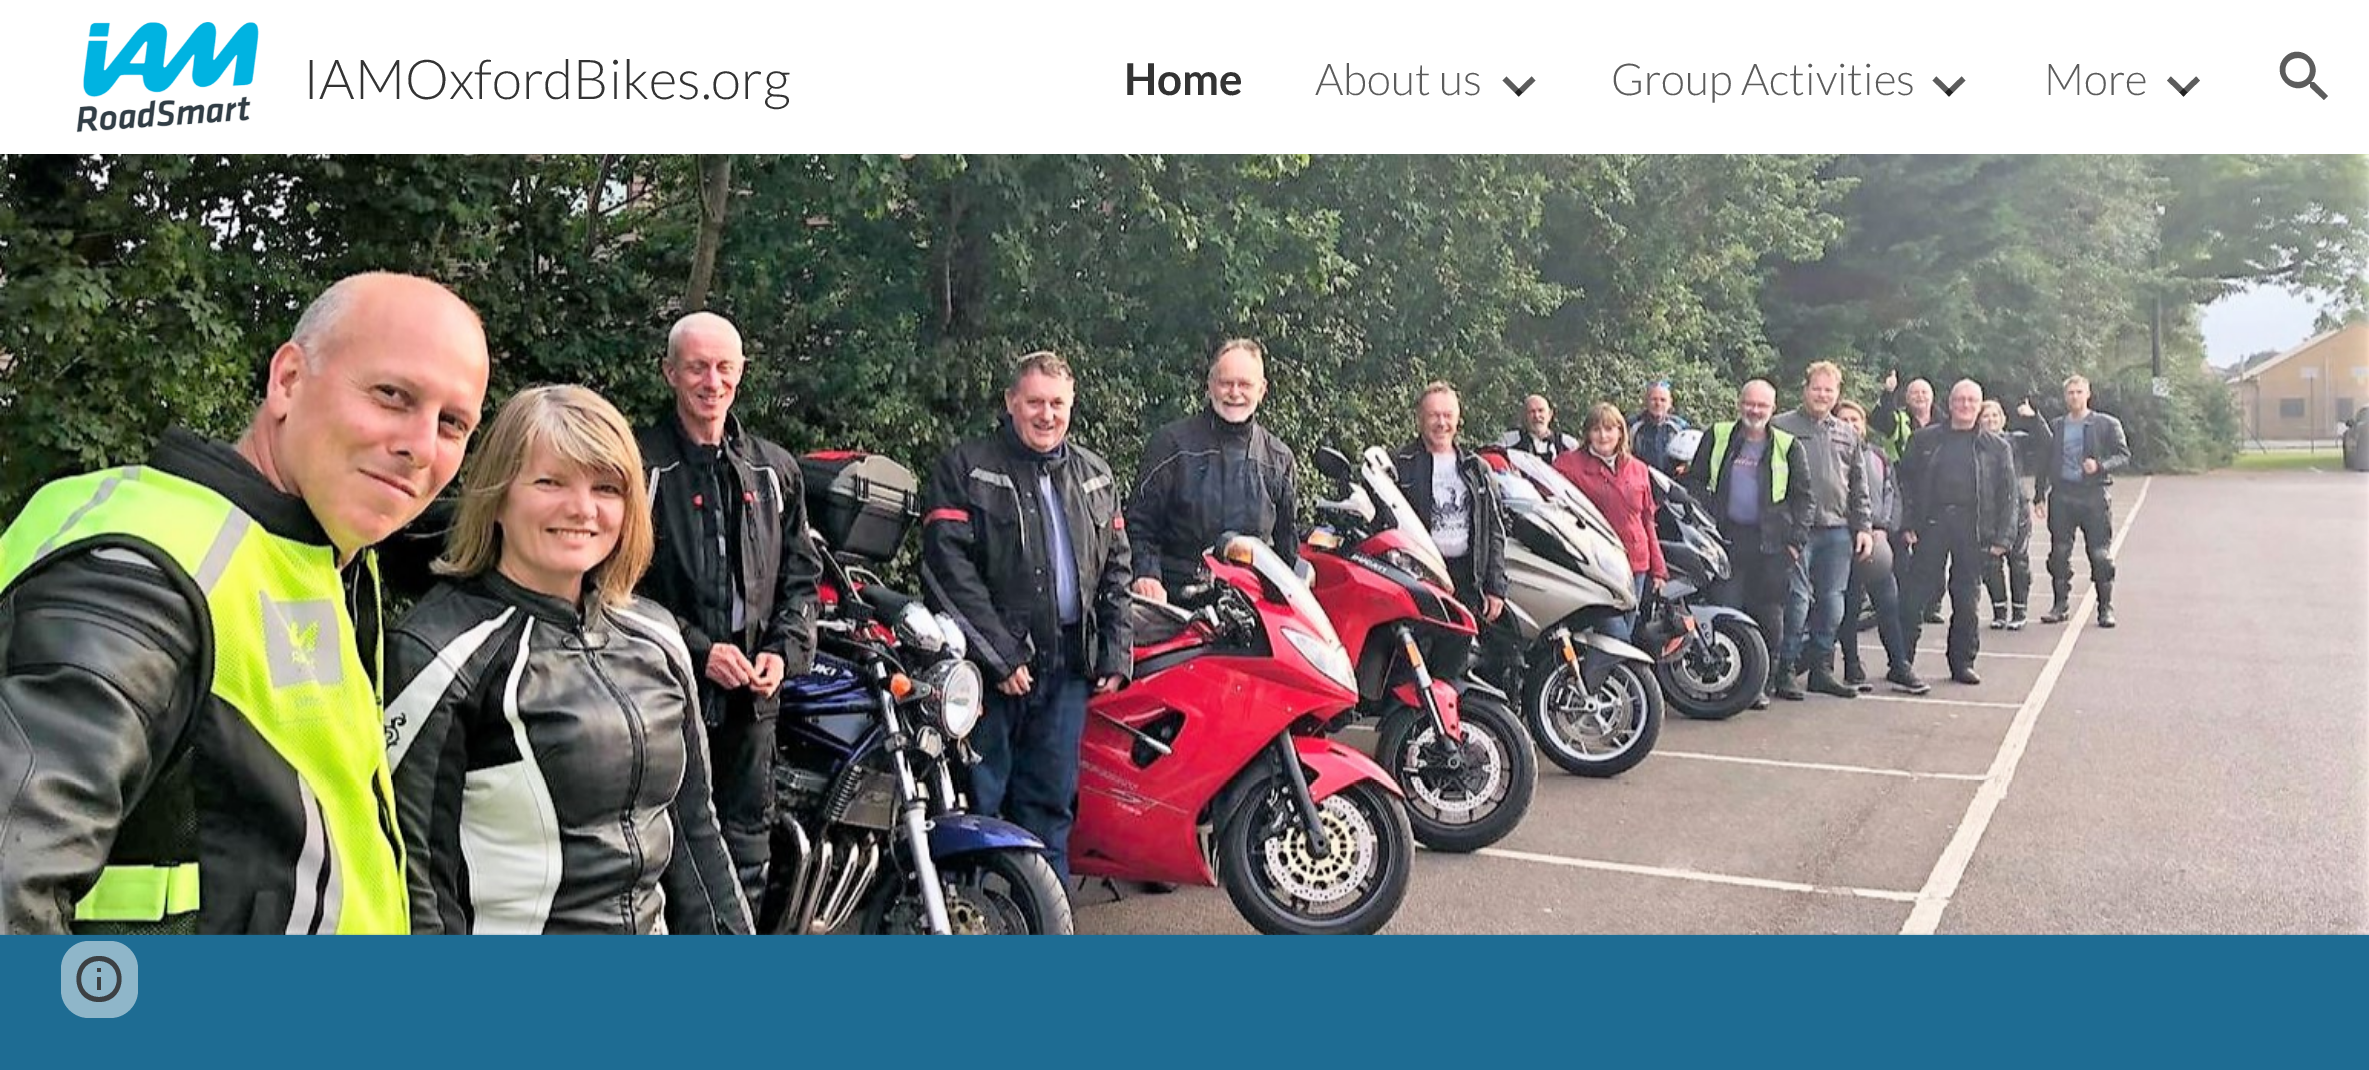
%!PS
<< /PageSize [2369 1070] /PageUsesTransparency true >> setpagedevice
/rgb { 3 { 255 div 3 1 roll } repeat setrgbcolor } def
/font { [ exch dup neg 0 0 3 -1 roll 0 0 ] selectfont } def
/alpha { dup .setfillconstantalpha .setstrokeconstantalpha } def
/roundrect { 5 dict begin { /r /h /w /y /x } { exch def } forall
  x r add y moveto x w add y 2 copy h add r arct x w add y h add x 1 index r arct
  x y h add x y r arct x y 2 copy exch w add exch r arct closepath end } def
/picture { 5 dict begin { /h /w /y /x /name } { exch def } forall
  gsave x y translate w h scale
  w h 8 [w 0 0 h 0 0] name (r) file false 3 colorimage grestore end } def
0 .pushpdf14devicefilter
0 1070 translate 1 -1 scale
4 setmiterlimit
255 255 255 rgb
0 0 2369 1070 rectfill
(img/1.rgb) 76 22 183 111 picture
92 92 92 rgb
5.5 setlinewidth
1504.5 78.5 moveto 1520.5 94.5 lineto stroke
0.64 alpha
0 0 0 rgb
1517 94.5 moveto 1533.5 78.5 lineto stroke
1 alpha
92 92 92 rgb
1934.5 78.5 moveto 1951 94.5 lineto stroke
0.64 alpha
0 0 0 rgb
1947 94.5 moveto 1963.5 78.5 lineto stroke
1 alpha
92 92 92 rgb
2169 78.5 moveto 2185.5 94.5 lineto stroke
0.64 alpha
0 0 0 rgb
2181.5 94.5 moveto 2198 78.5 lineto stroke
1 alpha
92 92 92 rgb
2314 82 moveto 2312 82 lineto 2311 82 lineto 2326 65 2301 41 2285 57 curveto 2269 74 2293 98 2309 84 curveto 2310 84 lineto 2310 87 lineto 2324 100 lineto 2328 96 lineto closepath 2298 82 moveto 2281 82 2281 58 2298 58 curveto 2314 58 2314 82 2298 82 curveto closepath fill
(img/2.rgb) 0 154 2369 781 picture
30 108 147 rgb
0 935 2369 135 rectfill
143 182 201 rgb
61 941 77 77 28 roundrect fill
60 64 67 rgb
97 990 moveto 101 990 lineto 101 977 lineto 97 977 lineto closepath 99 956 moveto 69 956 69 1002 99 1002 curveto 129 1002 129 956 99 956 curveto closepath 99 997 moveto 75 997 75 961 99 961 curveto 123 961 123 997 99 997 curveto closepath 97 972 moveto 101 972 lineto 101 968 lineto 97 968 lineto closepath fill
/Lato-Light 55 font
51 51 51 rgb
303 99 moveto (IAMOxfordBikes.org) show
/Lato-Bold 44 font
1124 95 moveto (Home) show
/Lato-Light 44 font
92 92 92 rgb
[
  [(About us) 1315 95]
  [(Group Activities) 1611 95]
  [(More) 2044 95]
] { aload pop moveto show } forall
.poppdf14devicefilter showpage
